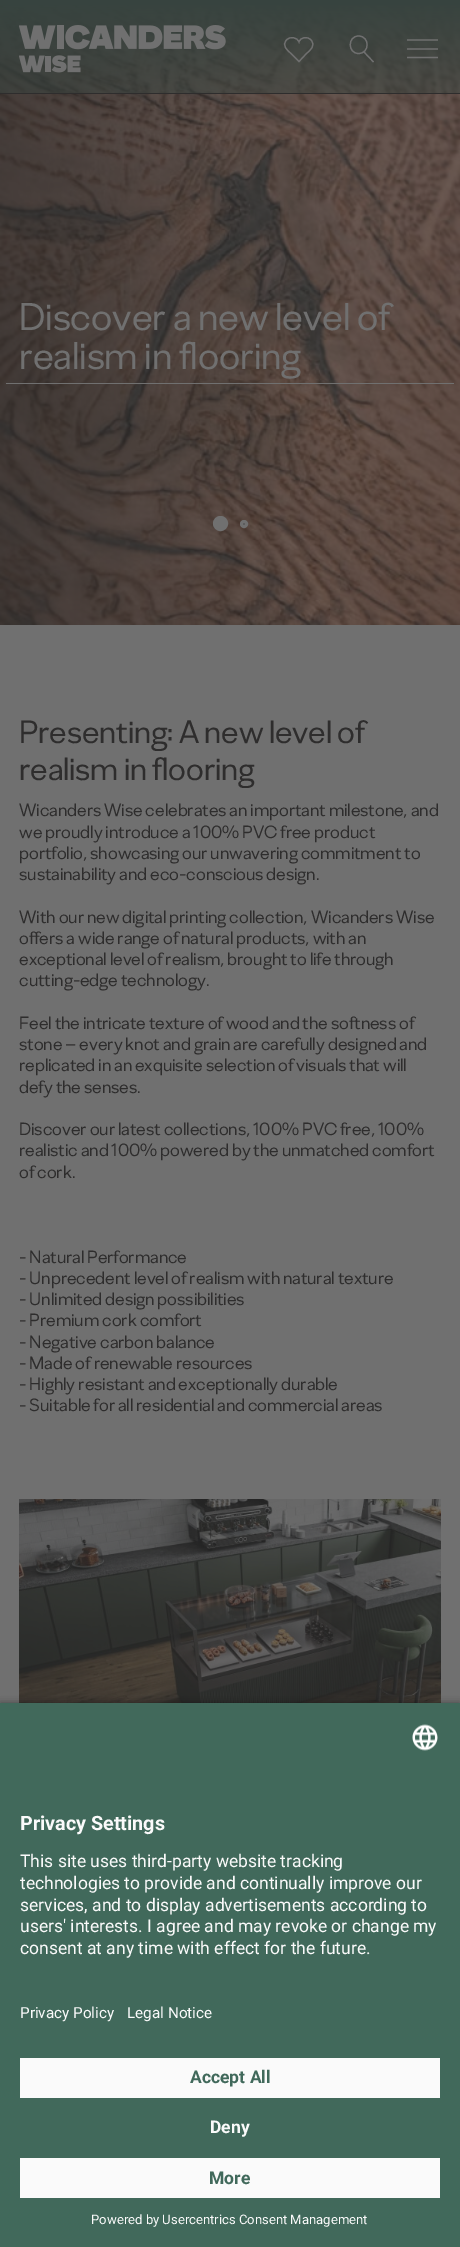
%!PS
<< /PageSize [460 2247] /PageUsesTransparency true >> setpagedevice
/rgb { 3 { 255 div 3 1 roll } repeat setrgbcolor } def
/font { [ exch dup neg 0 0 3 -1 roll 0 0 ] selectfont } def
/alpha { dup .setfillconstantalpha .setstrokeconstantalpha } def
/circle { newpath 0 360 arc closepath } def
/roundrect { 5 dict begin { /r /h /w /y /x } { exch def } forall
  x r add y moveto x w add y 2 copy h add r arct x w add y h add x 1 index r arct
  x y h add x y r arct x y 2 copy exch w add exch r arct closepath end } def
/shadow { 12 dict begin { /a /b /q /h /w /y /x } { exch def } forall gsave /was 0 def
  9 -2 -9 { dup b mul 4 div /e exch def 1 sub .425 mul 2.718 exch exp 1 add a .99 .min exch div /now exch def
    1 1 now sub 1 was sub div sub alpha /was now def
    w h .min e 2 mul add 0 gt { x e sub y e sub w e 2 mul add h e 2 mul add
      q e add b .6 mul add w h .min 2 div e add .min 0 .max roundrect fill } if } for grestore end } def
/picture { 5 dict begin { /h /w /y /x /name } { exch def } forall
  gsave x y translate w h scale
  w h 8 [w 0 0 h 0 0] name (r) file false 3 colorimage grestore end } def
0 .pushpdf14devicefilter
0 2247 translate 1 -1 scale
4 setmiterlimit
112 112 112 rgb
0 0 460 2247 rectfill
55 67 63 rgb
0 0 460 5 rectfill
(img/2.rgb) 0 5 460 620 picture
46 45 45 rgb
0 93 460 1 rectfill
(img/1.rgb) 19 25 207 48 picture
112 112 112 rgb
1.2 setlinewidth
299 61.5 moveto 291 53.5 lineto 287 50 281.5 45.5 286.5 40 curveto 290 36 297 37 299 42 curveto 300.5 37 307.5 36 311 40 curveto 316 45.5 310.5 50 306.5 53.5 curveto closepath stroke
358.5 53.5 moveto 370 53.5 370 36 358.5 36 curveto 347.5 36 347.5 53.5 358.5 53.5 curveto closepath 373.5 62 moveto 363.5 51.5 lineto stroke
407 49 moveto 438 49 lineto 407 40 moveto 438 40 lineto 407 57.5 moveto 438 57.5 lineto stroke
6 383 448 1 rectfill
220.5 523.5 4.5 circle gsave fill grestore
6 setlinewidth
stroke
71 71 71 rgb
244 524 2.5 circle gsave fill grestore
112 112 112 rgb
3 setlinewidth
stroke
(img/3.rgb) 19 1499 422 204 picture
0 0 0 rgb
0 1706 460 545 0 4.5 0.8 shadow
65 105 91 rgb
0 1703 460 544 rectfill
(img/4.rgb) 412 1724 26 27 picture
250 250 250 rgb
20 2058 420 40 rectfill
20 2158 420 40 rectfill
/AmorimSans-Regular 38.6 font
112 112 112 rgb
19 330 moveto (Discover a new level of) show
19 369 moveto (realism in flooring) show
/AmorimSans-Regular 32.25 font
46 45 45 rgb
19 743 moveto (Presenting: A new level of) show
19 780 moveto (realism in flooring) show
/AmorimSans-Regular 17.75 font
[
  [(Wicanders Wise celebrates an important milestone, and) 19 816]
  [(we proudly introduce a 100% PVC free product) 19 838]
  [(portfolio, showcasing our unwavering commitment to) 19 859]
  [(sustainability and eco-conscious design.) 19 880]
  [(With our new digital printing collection, Wicanders Wise) 19 923]
  [(offers a wide range of natural products, with an) 19 944]
  [(exceptional level of realism, brought to life through) 19 965]
  [(cutting-edge technology.) 19 986]
  [(Feel the intricate texture of wood and the softness of) 19 1029]
  [(stone – every knot and grain are carefully designed and) 19 1050]
  [(replicated in an exquisite selection of visuals that will) 19 1071]
  [(defy the senses.) 19 1093]
  [(Discover our latest collections, 100% PVC free, 100%) 19 1135]
  [(realistic and 100% powered by the unmatched comfort) 19 1156]
  [(of cork.) 19 1178]
  [(- Natural Performance) 19 1263]
  [(- Unprecedent level of realism with natural texture) 19 1284]
  [(- Unlimited design possibilities) 19 1305]
  [(- Premium cork comfort) 19 1326]
  [(- Negative carbon balance) 19 1348]
  [(- Made of renewable resources) 19 1369]
  [(- Highly resistant and exceptionally durable) 19 1390]
  [(- Suitable for all residential and commercial areas) 19 1411]
] { aload pop moveto show } forall
/Roboto-Bold 19.75 font
250 250 250 rgb
20 1830 moveto (Privacy Settings) show
/Roboto-Regular 17.5 font
[
  [(This site uses third-party website tracking) 20 1867]
  [(technologies to provide and continually improve our) 20 1889]
  [(services, and to display advertisements according to) 20 1911]
  [(users' interests. I agree and may revoke or change my) 20 1932]
  [(consent at any time with effect for the future.) 20 1954]
] { aload pop moveto show } forall
/Roboto-Regular 15.25 font
20 2018 moveto (Privacy Policy) show
127 2018 moveto (Legal Notice) show
/Roboto-Bold 17.5 font
65 105 91 rgb
190 2083 moveto (Accept All) show
250 250 250 rgb
210 2133 moveto (Deny) show
65 105 91 rgb
209 2184 moveto (More) show
/Roboto-Regular 13.1 font
250 250 250 rgb
91 2224 moveto (Powered by Usercentrics Consent Management) show
.poppdf14devicefilter showpage
